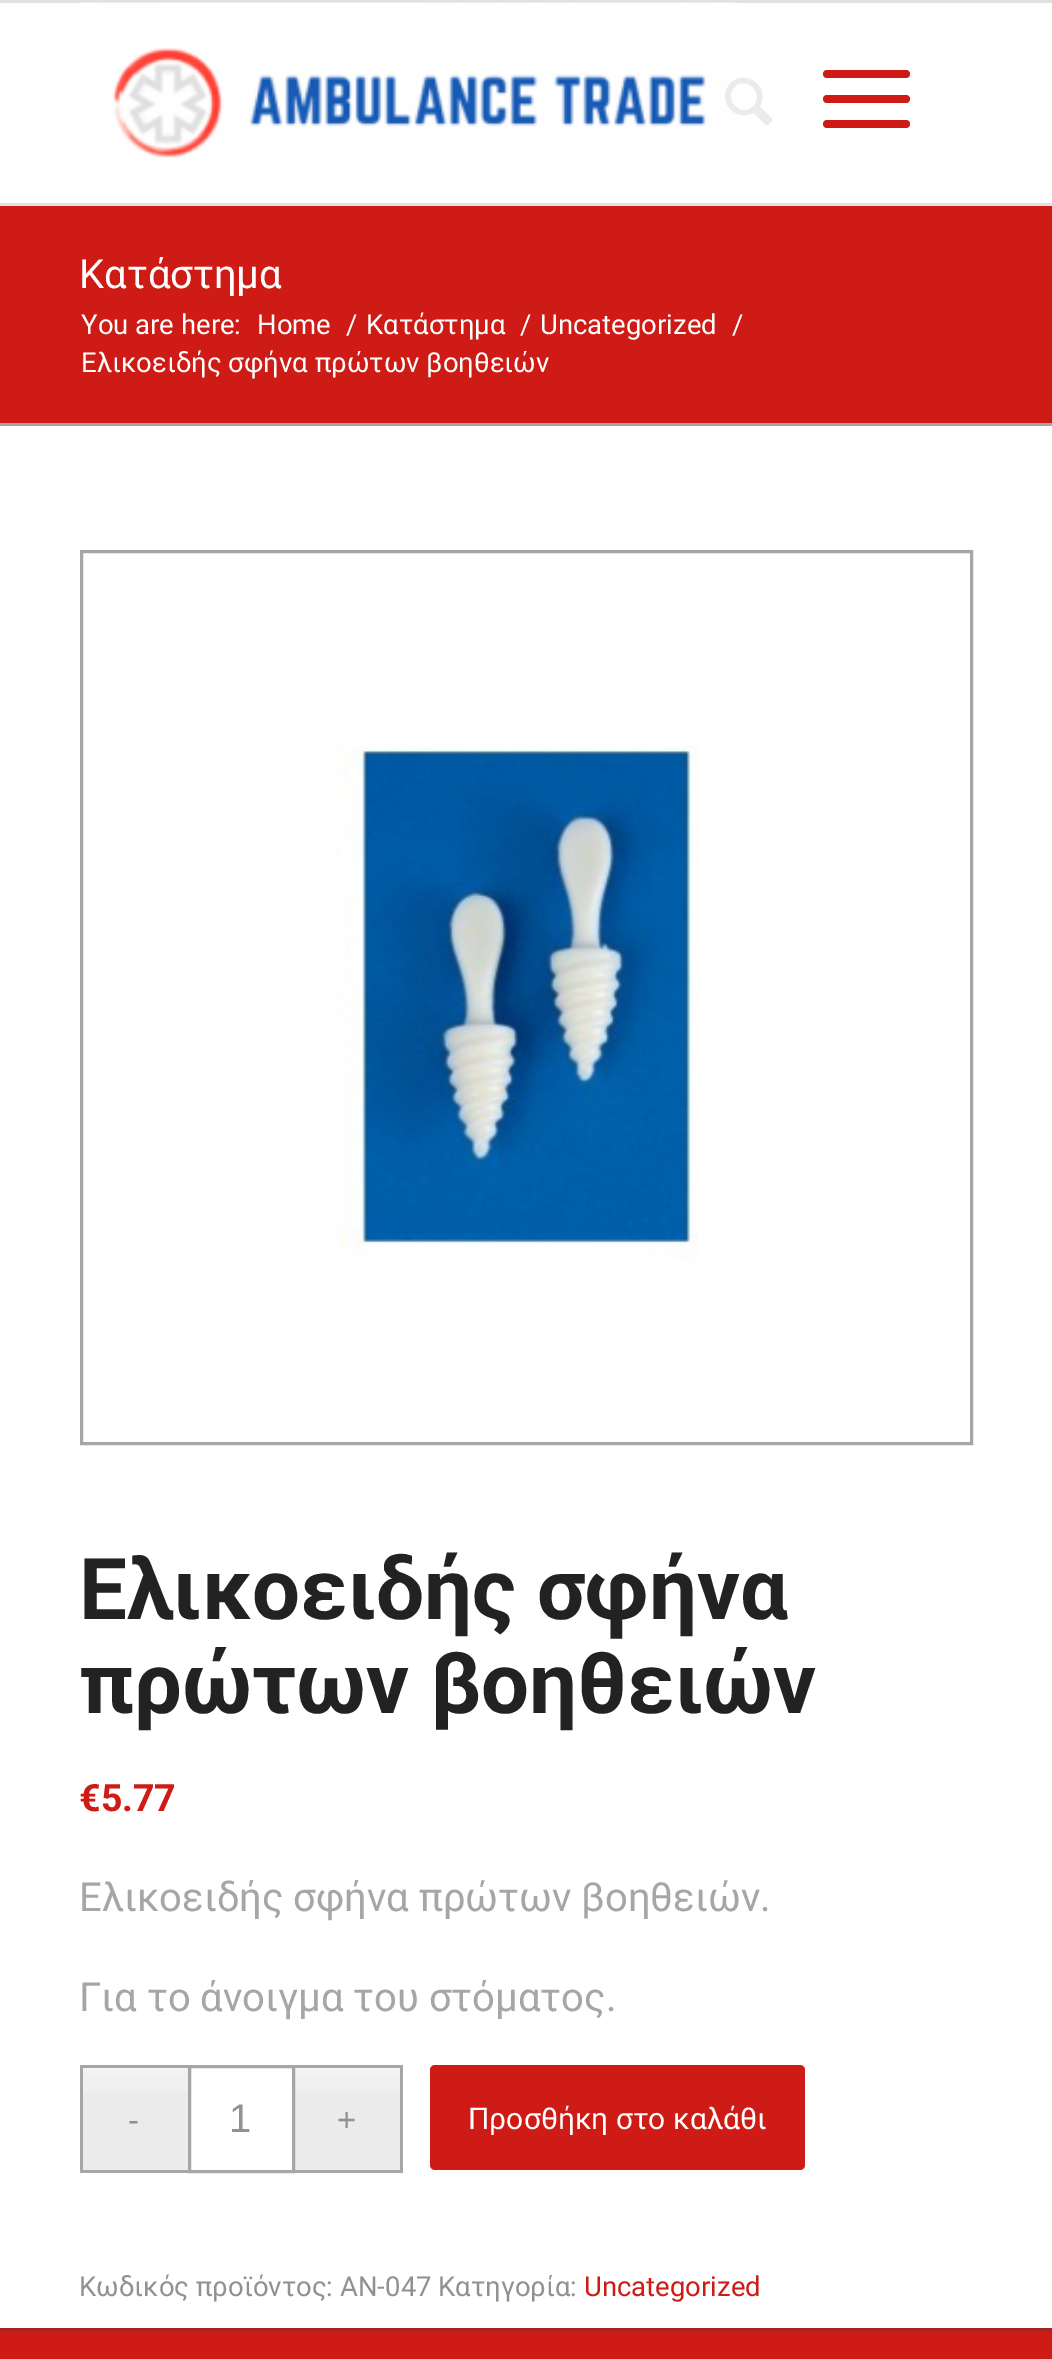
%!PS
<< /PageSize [1052 2359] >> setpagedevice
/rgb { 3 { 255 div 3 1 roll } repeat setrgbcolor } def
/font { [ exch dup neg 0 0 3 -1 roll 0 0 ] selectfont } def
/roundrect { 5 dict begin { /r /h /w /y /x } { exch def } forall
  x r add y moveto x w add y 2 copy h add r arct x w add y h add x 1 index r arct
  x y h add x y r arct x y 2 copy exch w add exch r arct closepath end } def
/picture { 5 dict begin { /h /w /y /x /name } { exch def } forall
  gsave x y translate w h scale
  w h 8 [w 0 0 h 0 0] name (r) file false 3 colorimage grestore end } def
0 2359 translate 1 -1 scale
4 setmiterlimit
255 255 255 rgb
0 0 1052 2359 rectfill
225 225 225 rgb
0 0 1052 3 rectfill
0 203 1052 3 rectfill
(img/1.rgb) 80 2 657 157 picture
(img/2.rgb) 725 77 48 48 picture
207 27 21 rgb
823 95 87 8 4 roundrect fill
823 70 87 8 4 roundrect fill
823 120 87 8 4 roundrect fill
0 206 1052 217 rectfill
166 166 166 rgb
0 423 1052 3 rectfill
3 setlinewidth
81.5 551.5 890 892 rectstroke
(img/3.rgb) 336 745 363 517 picture
235 235 235 rgb
83 2068 105 102 rectfill
(img/4.rgb) 83 2068 105 25 picture
295 2068 105 102 rectfill
(img/5.rgb) 295 2068 105 25 picture
[
  [80 2065 108 3 166 166 166]
  [80 2170 108 3 166 166 166]
  [80 2065 3 108 166 166 166]
] { aload pop rgb rectfill } forall
189.5 2066.5 104 105 rectstroke
[
  [295 2065 108 3 166 166 166]
  [400 2065 3 108 166 166 166]
  [295 2170 108 3 166 166 166]
] { aload pop rgb rectfill } forall
207 27 21 rgb
430 2065 375 105 5 roundrect fill
0 2331 1052 28 rectfill
166 33 31 rgb
0 2328 1052 3 rectfill
/Roboto-Regular 40 font
255 255 255 rgb
79 288 moveto (Κατάστημα) show
/Roboto-Regular 27.5 font
[
  [(You are here:) 81 334]
  [(Home) 257 334]
  [(/) 346 334]
  [(Κατάστημα) 366 334]
  [(/) 520 334]
  [(Uncategorized) 540 334]
  [(/) 732 334]
  [(Ελικοειδής σφήνα πρώτων βοηθειών) 81 372]
] { aload pop moveto show } forall
/Roboto-Bold 85 font
34 34 34 rgb
79 1619 moveto (Ελικοειδής σφήνα) show
79 1713 moveto (πρώτων βοηθειών) show
/Roboto-Bold 37.5 font
207 27 21 rgb
79 1811 moveto (€5.77) show
/Roboto-Regular 40 font
166 166 166 rgb
79 1911 moveto (Ελικοειδής σφήνα πρώτων βοηθειών.) show
79 2011 moveto (Για το άνοιγμα του στόματος.) show
/LiberationSans-Regular 33 font
145 145 145 rgb
128 2131 moveto (-) show
/LiberationSans-Regular 40 font
229 2132 moveto (1) show
/LiberationSans-Regular 33 font
337 2131 moveto (+) show
/Roboto-Regular 30 font
255 255 255 rgb
468 2129 moveto (Προσθήκη στο καλάθι) show
/Roboto-Regular 27.5 font
145 145 145 rgb
79 2296 moveto (Κωδικός προϊόντος: AN-047 Κατηγορία:) show
207 27 21 rgb
584 2296 moveto (Uncategorized) show
showpage
